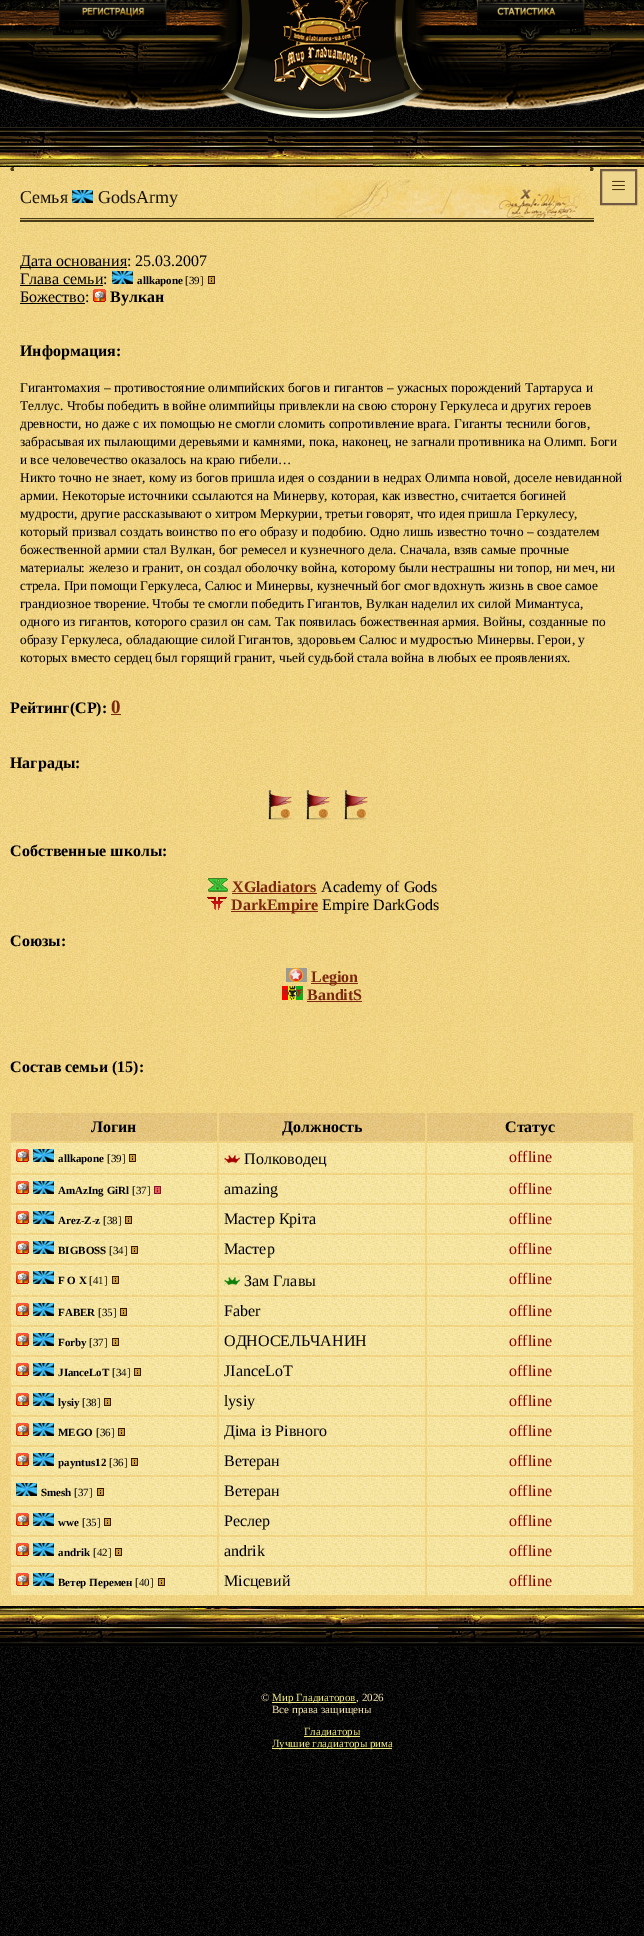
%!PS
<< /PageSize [644 1936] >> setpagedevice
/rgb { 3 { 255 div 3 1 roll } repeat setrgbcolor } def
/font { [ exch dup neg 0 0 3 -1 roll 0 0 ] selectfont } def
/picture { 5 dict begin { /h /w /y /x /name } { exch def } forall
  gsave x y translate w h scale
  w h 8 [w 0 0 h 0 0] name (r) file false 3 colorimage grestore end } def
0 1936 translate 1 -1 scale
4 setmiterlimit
255 255 255 rgb
0 0 644 1936 rectfill
(img/1.rgb) 0 88 644 1848 picture
(img/2.rgb) 0 0 644 118 picture
(img/3.rgb) 58 0 109 46 picture
(img/4.rgb) 476 0 109 46 picture
(img/5.rgb) 273 0 98 92 picture
(img/6.rgb) 0 167 644 1439 picture
(img/7.rgb) 0 127 644 40 picture
238 214 140 rgb
601 170 moveto 636 170 lineto 636 204 lineto 601 204 lineto closepath gsave fill grestore
114 89 69 rgb
2 setlinewidth
stroke
(img/8.rgb) 612 180 13 11 picture
(img/9.rgb) 243 167 351 51 picture
(img/10.rgb) 20 218 574 4 picture
(img/11.rgb) 10 167 4 4 picture
(img/12.rgb) 590 167 4 4 picture
(img/13.rgb) 72 190 21 13 picture
0 0 0 rgb
20 267 107 1 rectfill
20 285 83 1 rectfill
(img/14.rgb) 112 271 21 13 picture
(img/15.rgb) 208 276 7 8 picture
20 303 65 1 rectfill
(img/16.rgb) 93 289 13 13 picture
124 40 14 rgb
111 714 10 1 rectfill
(img/17.rgb) 268 790 25 30 picture
(img/18.rgb) 306 790 25 30 picture
(img/19.rgb) 344 790 25 30 picture
(img/20.rgb) 207 878 21 14 picture
232 893 85 1 rectfill
(img/21.rgb) 207 897 20 13 picture
231 911 87 1 rectfill
(img/22.rgb) 286 968 21 14 picture
311 983 47 1 rectfill
(img/23.rgb) 282 986 21 14 picture
307 1001 55 1 rectfill
(img/24.rgb) 11 1113 206 28 picture
(img/24.rgb) 219 1113 206 28 picture
(img/24.rgb) 427 1113 206 28 picture
(img/25.rgb) 11 1143 206 30 picture
(img/26.rgb) 16 1149 13 13 picture
(img/14.rgb) 33 1149 21 13 picture
(img/15.rgb) 129 1154 7 8 picture
(img/25.rgb) 219 1143 206 30 picture
(img/27.rgb) 224 1153 16 11 picture
(img/25.rgb) 427 1143 206 30 picture
(img/28.rgb) 11 1175 206 28 picture
(img/26.rgb) 16 1181 13 13 picture
(img/14.rgb) 33 1181 21 13 picture
(img/29.rgb) 154 1186 7 8 picture
(img/28.rgb) 219 1175 206 28 picture
(img/28.rgb) 427 1175 206 28 picture
(img/28.rgb) 11 1205 206 28 picture
(img/26.rgb) 16 1211 13 13 picture
(img/14.rgb) 33 1211 21 13 picture
(img/15.rgb) 125 1216 7 8 picture
(img/28.rgb) 219 1205 206 28 picture
(img/28.rgb) 427 1205 206 28 picture
(img/28.rgb) 11 1235 206 28 picture
(img/26.rgb) 16 1241 13 13 picture
(img/14.rgb) 33 1241 21 13 picture
(img/15.rgb) 131 1246 7 8 picture
(img/28.rgb) 219 1235 206 28 picture
(img/28.rgb) 427 1235 206 28 picture
(img/25.rgb) 11 1265 206 30 picture
(img/26.rgb) 16 1271 13 13 picture
(img/14.rgb) 33 1271 21 13 picture
(img/15.rgb) 112 1276 7 8 picture
(img/25.rgb) 219 1265 206 30 picture
(img/30.rgb) 224 1275 16 11 picture
(img/25.rgb) 427 1265 206 30 picture
(img/28.rgb) 11 1297 206 28 picture
(img/26.rgb) 16 1303 13 13 picture
(img/14.rgb) 33 1303 21 13 picture
(img/15.rgb) 120 1308 7 8 picture
(img/28.rgb) 219 1297 206 28 picture
(img/28.rgb) 427 1297 206 28 picture
(img/28.rgb) 11 1327 206 28 picture
(img/26.rgb) 16 1333 13 13 picture
(img/14.rgb) 33 1333 21 13 picture
(img/15.rgb) 112 1338 7 8 picture
(img/28.rgb) 219 1327 206 28 picture
(img/28.rgb) 427 1327 206 28 picture
(img/28.rgb) 11 1357 206 28 picture
(img/26.rgb) 16 1363 13 13 picture
(img/14.rgb) 33 1363 21 13 picture
(img/15.rgb) 134 1368 7 8 picture
(img/28.rgb) 219 1357 206 28 picture
(img/28.rgb) 427 1357 206 28 picture
(img/28.rgb) 11 1387 206 28 picture
(img/26.rgb) 16 1393 13 13 picture
(img/14.rgb) 33 1393 21 13 picture
(img/15.rgb) 104 1398 7 8 picture
(img/28.rgb) 219 1387 206 28 picture
(img/28.rgb) 427 1387 206 28 picture
(img/28.rgb) 11 1417 206 28 picture
(img/26.rgb) 16 1423 13 13 picture
(img/14.rgb) 33 1423 21 13 picture
(img/15.rgb) 118 1428 7 8 picture
(img/28.rgb) 219 1417 206 28 picture
(img/28.rgb) 427 1417 206 28 picture
(img/28.rgb) 11 1447 206 28 picture
(img/26.rgb) 16 1453 13 13 picture
(img/14.rgb) 33 1453 21 13 picture
(img/15.rgb) 131 1458 7 8 picture
(img/28.rgb) 219 1447 206 28 picture
(img/28.rgb) 427 1447 206 28 picture
(img/28.rgb) 11 1477 206 28 picture
(img/31.rgb) 16 1483 21 13 picture
(img/15.rgb) 97 1488 7 8 picture
(img/28.rgb) 219 1477 206 28 picture
(img/28.rgb) 427 1477 206 28 picture
(img/28.rgb) 11 1507 206 28 picture
(img/26.rgb) 16 1513 13 13 picture
(img/14.rgb) 33 1513 21 13 picture
(img/15.rgb) 104 1518 7 8 picture
(img/28.rgb) 219 1507 206 28 picture
(img/28.rgb) 427 1507 206 28 picture
(img/28.rgb) 11 1537 206 28 picture
(img/26.rgb) 16 1543 13 13 picture
(img/14.rgb) 33 1543 21 13 picture
(img/15.rgb) 115 1548 7 8 picture
(img/28.rgb) 219 1537 206 28 picture
(img/28.rgb) 427 1537 206 28 picture
(img/28.rgb) 11 1567 206 28 picture
(img/26.rgb) 16 1573 13 13 picture
(img/14.rgb) 33 1573 21 13 picture
(img/15.rgb) 158 1578 7 8 picture
(img/28.rgb) 219 1567 206 28 picture
(img/28.rgb) 427 1567 206 28 picture
(img/32.rgb) 0 1606 644 85 picture
[
  [272 1702 84 1 239 235 130]
  [304 1736 56 1 239 235 130]
  [272 1748 120 1 239 235 130]
] { aload pop rgb rectfill } forall
/LiberationSerif-Regular 18 font
25 19 10 rgb
20 203 moveto (Семья) show
98 203 moveto (GodsArmy) show
/LiberationSerif-Regular 16 font
0 0 0 rgb
20 266 moveto (Дата основания: 25.03.2007) show
20 284 moveto (Глава семьи:) show
/LiberationSerif-Bold 11 font
137 284 moveto (allkapone) show
/LiberationSerif-Regular 11 font
185 284 moveto ([39]) show
/LiberationSerif-Regular 16 font
20 302 moveto (Божество:) show
/LiberationSerif-Bold 16 font
110 302 moveto (Вулкан) show
20 356 moveto (Информация:) show
/LiberationSerif-Regular 13.35 font
[
  [(Гигантомахия – противостояние олимпийских богов и гигантов – ужасных порождений Тартаруса и) 20 392]
  [(Теллус. Чтобы победить в войне олимпийцы привлекли на свою сторону Геркулеса и других героев) 20 410]
  [(древности, но даже с их помощью не смогли сломить сопротивление врага. Гиганты теснили богов,) 20 428]
  [(забрасывая их пылающими деревьями и камнями, пока, наконец, не загнали противника на Олимп. Боги) 20 446]
  [(и все человечество оказалось на краю гибели…) 20 464]
  [(Никто точно не знает, кому из богов пришла идея о создании в недрах Олимпа новой, доселе невиданной) 20 482]
  [(армии. Некоторые источники ссылаются на Минерву, которая, как известно, считается богиней) 20 500]
  [(мудрости, другие рассказывают о хитром Меркурии, третьи говорят, что идея пришла Геркулесу,) 20 518]
  [(который призвал создать воинство по его образу и подобию. Одно лишь известно точно – создателем) 20 536]
  [(божественной армии стал Вулкан, бог ремесел и кузнечного дела. Сначала, взяв самые прочные) 20 554]
  [(материалы: железо и гранит, он создал оболочку война, которому были нестрашны ни топор, ни меч, ни) 20 572]
  [(стрела. При помощи Геркулеса, Салюс и Минервы, кузнечный бог смог вдохнуть жизнь в свое самое) 20 590]
  [(грандиозное творение. Чтобы те смогли победить Гигантов, Вулкан наделил их силой Мимантуса,) 20 608]
  [(одного из гигантов, которого сразил он сам. Так появилась божественная армия. Войны, созданные по) 20 626]
  [(образу Геркулеса, обладающие силой Гигантов, здоровьем Салюс и мудростью Минервы. Герои, у) 20 644]
  [(которых вместо сердец был горящий гранит, чьей судьбой стала война в любых ее проявлениях.) 20 662]
] { aload pop moveto show } forall
/LiberationSerif-Bold 16 font
10 713 moveto (Рейтинг\(CP\):) show
/LiberationSerif-Bold 19 font
124 40 14 rgb
111 713 moveto (0) show
/LiberationSerif-Bold 16 font
0 0 0 rgb
10 768 moveto (Награды:) show
10 856 moveto (Собственные школы:) show
124 40 14 rgb
232 892 moveto (XGladiators) show
/LiberationSerif-Regular 16 font
0 0 0 rgb
321 892 moveto (Academy of Gods) show
/LiberationSerif-Bold 16 font
124 40 14 rgb
231 910 moveto (DarkEmpire) show
/LiberationSerif-Regular 16 font
0 0 0 rgb
322 910 moveto (Empire DarkGods) show
/LiberationSerif-Bold 16 font
10 946 moveto (Союзы:) show
124 40 14 rgb
311 982 moveto (Legion) show
307 1000 moveto (BanditS) show
0 0 0 rgb
[
  [(Состав семьи \(15\):) 10 1072]
  [(Логин) 91 1132]
  [(Должность) 282 1132]
  [(Статус) 505 1132]
] { aload pop moveto show } forall
/LiberationSerif-Bold 11 font
58 1162 moveto (allkapone) show
/LiberationSerif-Regular 11 font
107 1162 moveto ([39]) show
/LiberationSerif-Regular 16 font
244 1164 moveto (Полководец) show
139 0 0 rgb
509 1162 moveto (offline) show
/LiberationSerif-Bold 11 font
0 0 0 rgb
58 1194 moveto (AmAzIng GiRl) show
/LiberationSerif-Regular 11 font
132 1194 moveto ([37]) show
/LiberationSerif-Regular 16 font
224 1194 moveto (amazing) show
139 0 0 rgb
509 1194 moveto (offline) show
/LiberationSerif-Bold 11 font
0 0 0 rgb
58 1224 moveto (Arez-Z-z) show
/LiberationSerif-Regular 11 font
103 1224 moveto ([38]) show
/LiberationSerif-Regular 16 font
224 1224 moveto (Мастер Кріта) show
139 0 0 rgb
509 1224 moveto (offline) show
/LiberationSerif-Bold 11 font
0 0 0 rgb
58 1254 moveto (BIGBOSS) show
/LiberationSerif-Regular 11 font
109 1254 moveto ([34]) show
/LiberationSerif-Regular 16 font
224 1254 moveto (Мастер) show
139 0 0 rgb
509 1254 moveto (offline) show
/LiberationSerif-Bold 11 font
0 0 0 rgb
58 1284 moveto (F O X) show
/LiberationSerif-Regular 11 font
89 1284 moveto ([41]) show
/LiberationSerif-Regular 16 font
244 1286 moveto (Зам Главы) show
139 0 0 rgb
509 1284 moveto (offline) show
/LiberationSerif-Bold 11 font
0 0 0 rgb
58 1316 moveto (FABER) show
/LiberationSerif-Regular 11 font
98 1316 moveto ([35]) show
/LiberationSerif-Regular 16 font
224 1316 moveto (Faber) show
139 0 0 rgb
509 1316 moveto (offline) show
/LiberationSerif-Bold 11 font
0 0 0 rgb
58 1346 moveto (Forby) show
/LiberationSerif-Regular 11 font
89 1346 moveto ([37]) show
/LiberationSerif-Regular 16 font
224 1346 moveto (ОДНОСЕЛЬЧАНИН) show
139 0 0 rgb
509 1346 moveto (offline) show
/LiberationSerif-Bold 11 font
0 0 0 rgb
58 1376 moveto (JIanceLoT) show
/LiberationSerif-Regular 11 font
112 1376 moveto ([34]) show
/LiberationSerif-Regular 16 font
224 1376 moveto (JIanceLoT) show
139 0 0 rgb
509 1376 moveto (offline) show
/LiberationSerif-Bold 11 font
0 0 0 rgb
58 1406 moveto (lysiy) show
/LiberationSerif-Regular 11 font
82 1406 moveto ([38]) show
/LiberationSerif-Regular 16 font
224 1406 moveto (lysiy) show
139 0 0 rgb
509 1406 moveto (offline) show
/LiberationSerif-Bold 11 font
0 0 0 rgb
58 1436 moveto (MEGO) show
/LiberationSerif-Regular 11 font
96 1436 moveto ([36]) show
/LiberationSerif-Regular 16 font
224 1436 moveto (Діма із Рівного) show
139 0 0 rgb
509 1436 moveto (offline) show
/LiberationSerif-Bold 11 font
0 0 0 rgb
58 1466 moveto (payntus12) show
/LiberationSerif-Regular 11 font
109 1466 moveto ([36]) show
/LiberationSerif-Regular 16 font
224 1466 moveto (Ветеран) show
139 0 0 rgb
509 1466 moveto (offline) show
/LiberationSerif-Bold 11 font
0 0 0 rgb
41 1496 moveto (Smesh) show
/LiberationSerif-Regular 11 font
74 1496 moveto ([37]) show
/LiberationSerif-Regular 16 font
224 1496 moveto (Ветеран) show
139 0 0 rgb
509 1496 moveto (offline) show
/LiberationSerif-Bold 11 font
0 0 0 rgb
58 1526 moveto (wwe) show
/LiberationSerif-Regular 11 font
82 1526 moveto ([35]) show
/LiberationSerif-Regular 16 font
224 1526 moveto (Реслер) show
139 0 0 rgb
509 1526 moveto (offline) show
/LiberationSerif-Bold 11 font
0 0 0 rgb
58 1556 moveto (andrik) show
/LiberationSerif-Regular 11 font
93 1556 moveto ([42]) show
/LiberationSerif-Regular 16 font
224 1556 moveto (andrik) show
139 0 0 rgb
509 1556 moveto (offline) show
/LiberationSerif-Bold 11 font
0 0 0 rgb
58 1586 moveto (Ветер Перемен) show
/LiberationSerif-Regular 11 font
135 1586 moveto ([40]) show
/LiberationSerif-Regular 16 font
224 1586 moveto (Місцевий) show
139 0 0 rgb
509 1586 moveto (offline) show
/LiberationSerif-Regular 11 font
248 231 179 rgb
261 1701 moveto (©) show
239 235 130 rgb
272 1701 moveto (Мир Гладиаторов) show
248 231 179 rgb
356 1701 moveto (, 2026) show
272 1713 moveto (Все права защищены) show
239 235 130 rgb
304 1735 moveto (Гладиаторы) show
272 1747 moveto (Лучшие гладиаторы рима) show
showpage
